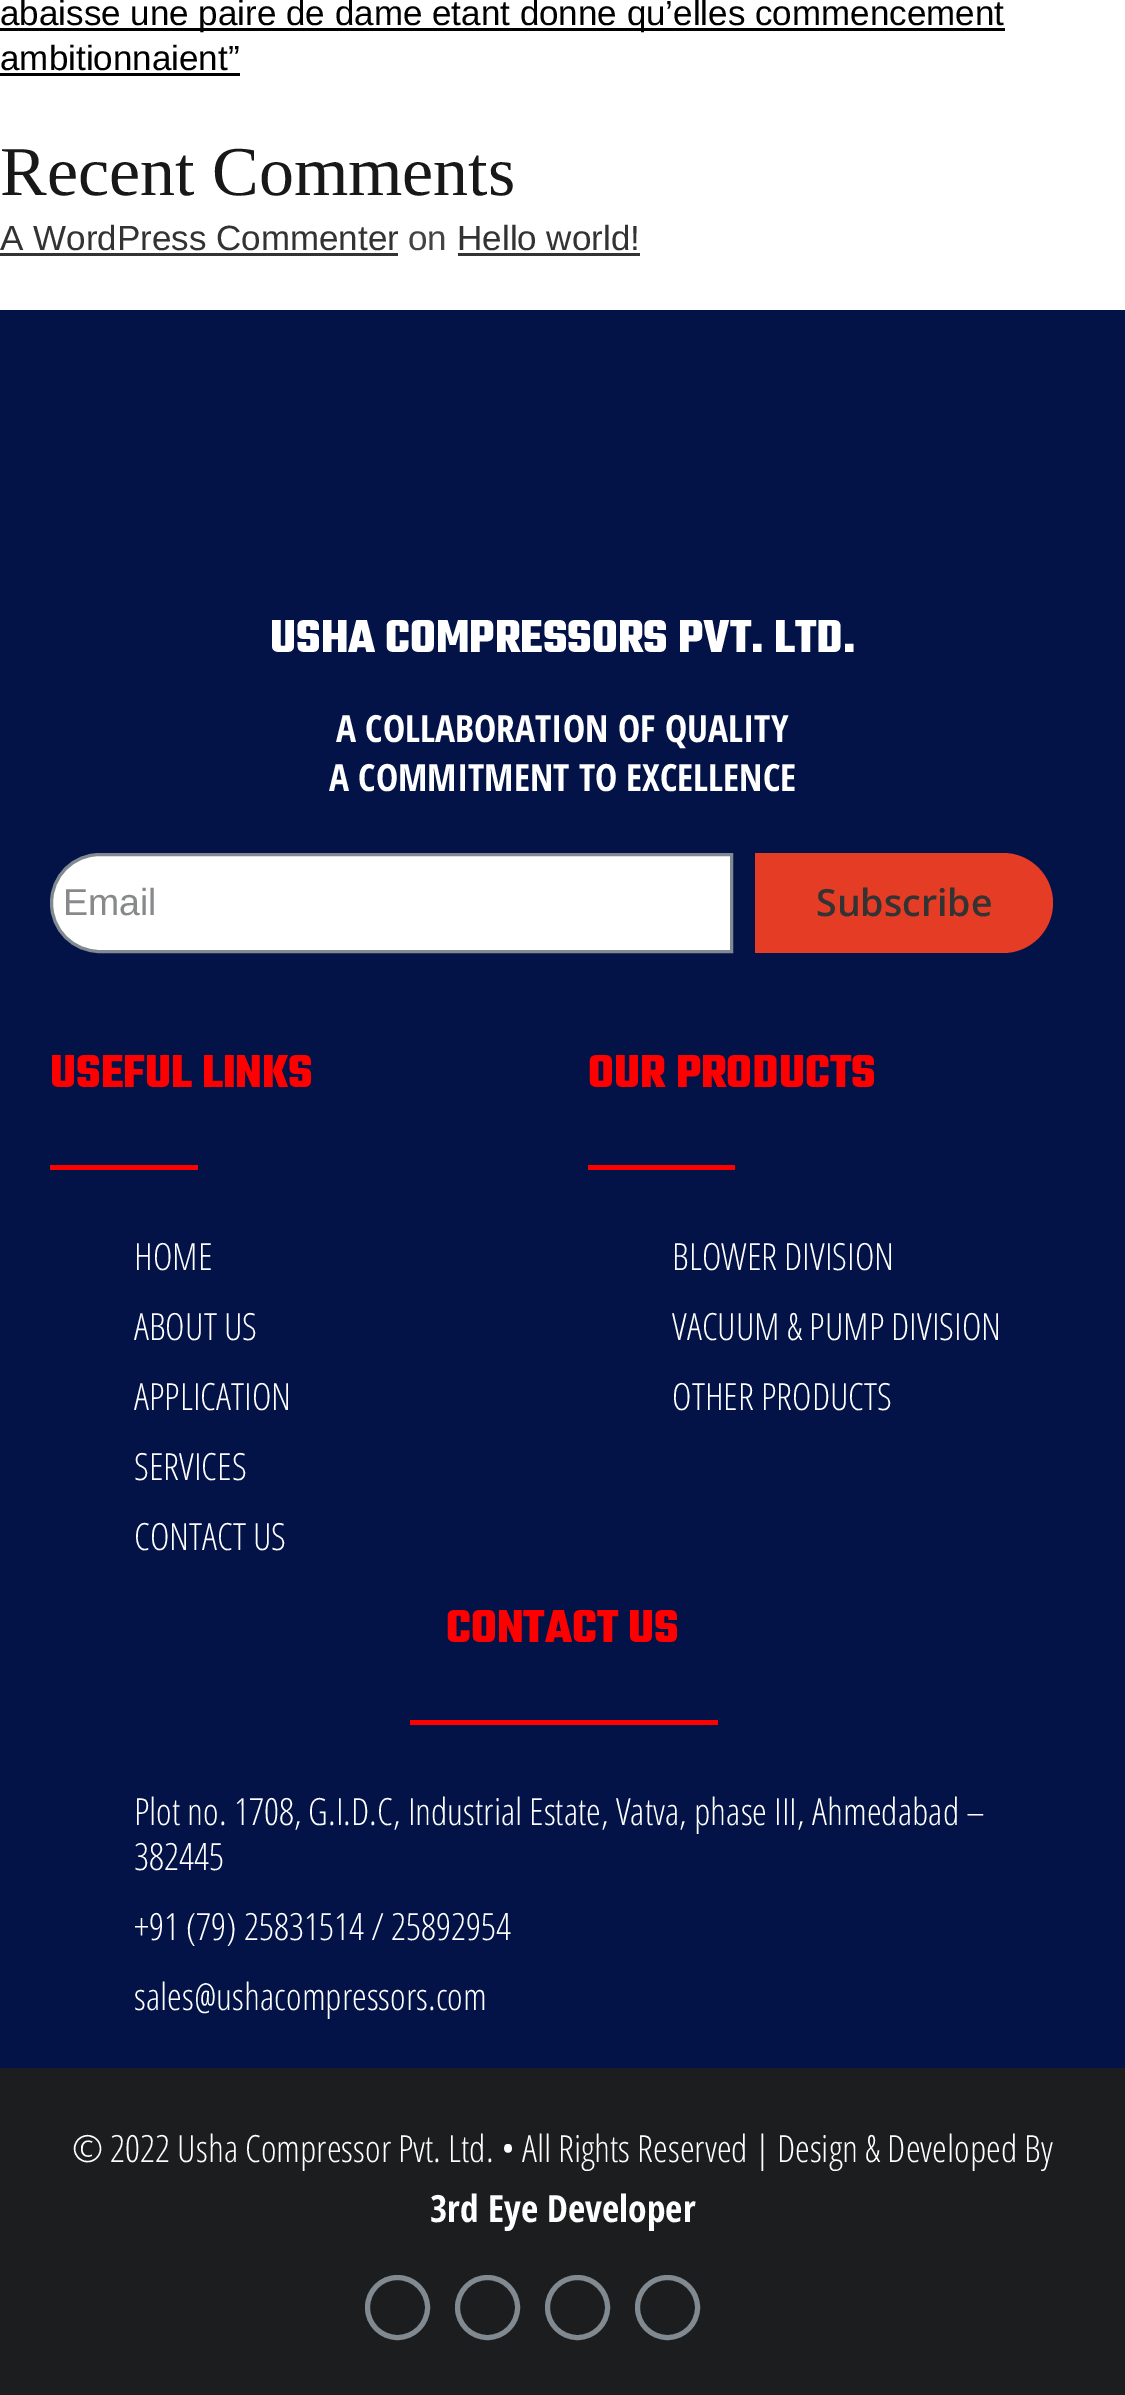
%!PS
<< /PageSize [1125 2395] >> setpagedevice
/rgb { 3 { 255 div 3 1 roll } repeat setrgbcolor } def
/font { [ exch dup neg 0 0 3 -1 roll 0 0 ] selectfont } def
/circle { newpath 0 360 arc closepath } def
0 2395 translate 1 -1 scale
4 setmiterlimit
255 255 255 rgb
0 0 1125 2395 rectfill
[
  [0 28 1005 3 0 0 0]
  [0 73 240 3 0 0 0]
  [0 253 398 3 51 51 51]
  [458 253 182 3 51 51 51]
  [0 310 1125 1758 3 19 71]
] { aload pop rgb rectfill } forall
255 255 255 rgb
100 854.5 moveto 731.5 854.5 lineto 731.5 951.5 lineto 100 951.5 lineto 73 951.5 51.5 930 51.5 903 curveto 51.5 876 73 854.5 100 854.5 curveto closepath gsave fill grestore
129 138 145 rgb
3 setlinewidth
stroke
228 60 37 rgb
755 853 moveto 1003 853 lineto 1030.5 853 1053 875.5 1053 903 curveto 1053 930.5 1030.5 953 1003 953 curveto 755 953 lineto closepath fill
[
  [50 1165 148 5 255 0 0]
  [588 1165 147 5 255 0 0]
  [410 1720 308 5 255 0 0]
  [0 2068 1125 327 28 29 30]
] { aload pop rgb rectfill } forall
129 138 145 rgb
5 setlinewidth
397.5 2307.5 30 circle stroke
487.5 2307.5 30 circle stroke
577.5 2307.5 30 circle stroke
667.5 2307.5 30 circle stroke
/LiberationSans-Regular 35 font
0 0 0 rgb
0 25 moveto (abaisse une paire de dame etant donne qu’elles commencement) show
0 70 moveto (ambitionnaient”) show
/LiberationSerif-Regular 70 font
24 24 24 rgb
0 195 moveto (Recent Comments) show
/LiberationSans-Regular 35 font
51 51 51 rgb
0 250 moveto (A WordPress Commenter) show
68 68 68 rgb
408 250 moveto (on) show
51 51 51 rgb
457 250 moveto (Hello world!) show
/Teko-Bold 50 font
255 255 255 rgb
270 652 moveto (USHA COMPRESSORS PVT. LTD.) show
/OpenSansCondensed-Bold 37.5 font
336 742 moveto (A COLLABORATION OF QUALITY) show
329 791 moveto (A COMMITMENT TO EXCELLENCE) show
/LiberationSans-Regular 37.5 font
135 137 138 rgb
63 915 moveto (Email) show
/OpenSans-SemiBold 37.5 font
51 51 51 rgb
816 916 moveto (Subscribe) show
/Teko-Bold 50 font
255 0 0 rgb
50 1087 moveto (USEFUL LINKS) show
/OpenSansCondensed-Light 37.5 font
255 255 255 rgb
[
  [(HOME) 134 1270]
  [(ABOUT US) 134 1340]
  [(APPLICATION) 134 1410]
  [(SERVICES) 134 1480]
  [(CONTACT US) 134 1550]
] { aload pop moveto show } forall
/Teko-Bold 50 font
255 0 0 rgb
588 1087 moveto (OUR PRODUCTS) show
/OpenSansCondensed-Light 37.5 font
255 255 255 rgb
[
  [(BLOWER DIVISION) 672 1270]
  [(VACUUM & PUMP DIVISION) 672 1340]
  [(OTHER PRODUCTS) 672 1410]
] { aload pop moveto show } forall
/Teko-Bold 50 font
255 0 0 rgb
446 1642 moveto (CONTACT US) show
/OpenSansCondensed-Light 37.5 font
255 255 255 rgb
[
  [(Plot no. 1708, G.I.D.C, Industrial Estate, Vatva, phase III, Ahmedabad –) 134 1825]
  [(382445) 134 1870]
  [(+91 \(79\) 25831514 / 25892954) 134 1940]
  [(sales@ushacompressors.com) 134 2010]
  [(© 2022 Usha Compressor Pvt. Ltd. • All Rights Reserved | Design & Developed By) 72 2162]
] { aload pop moveto show } forall
/OpenSansCondensed-Bold 37.5 font
430 2222 moveto (3rd Eye Developer) show
showpage
